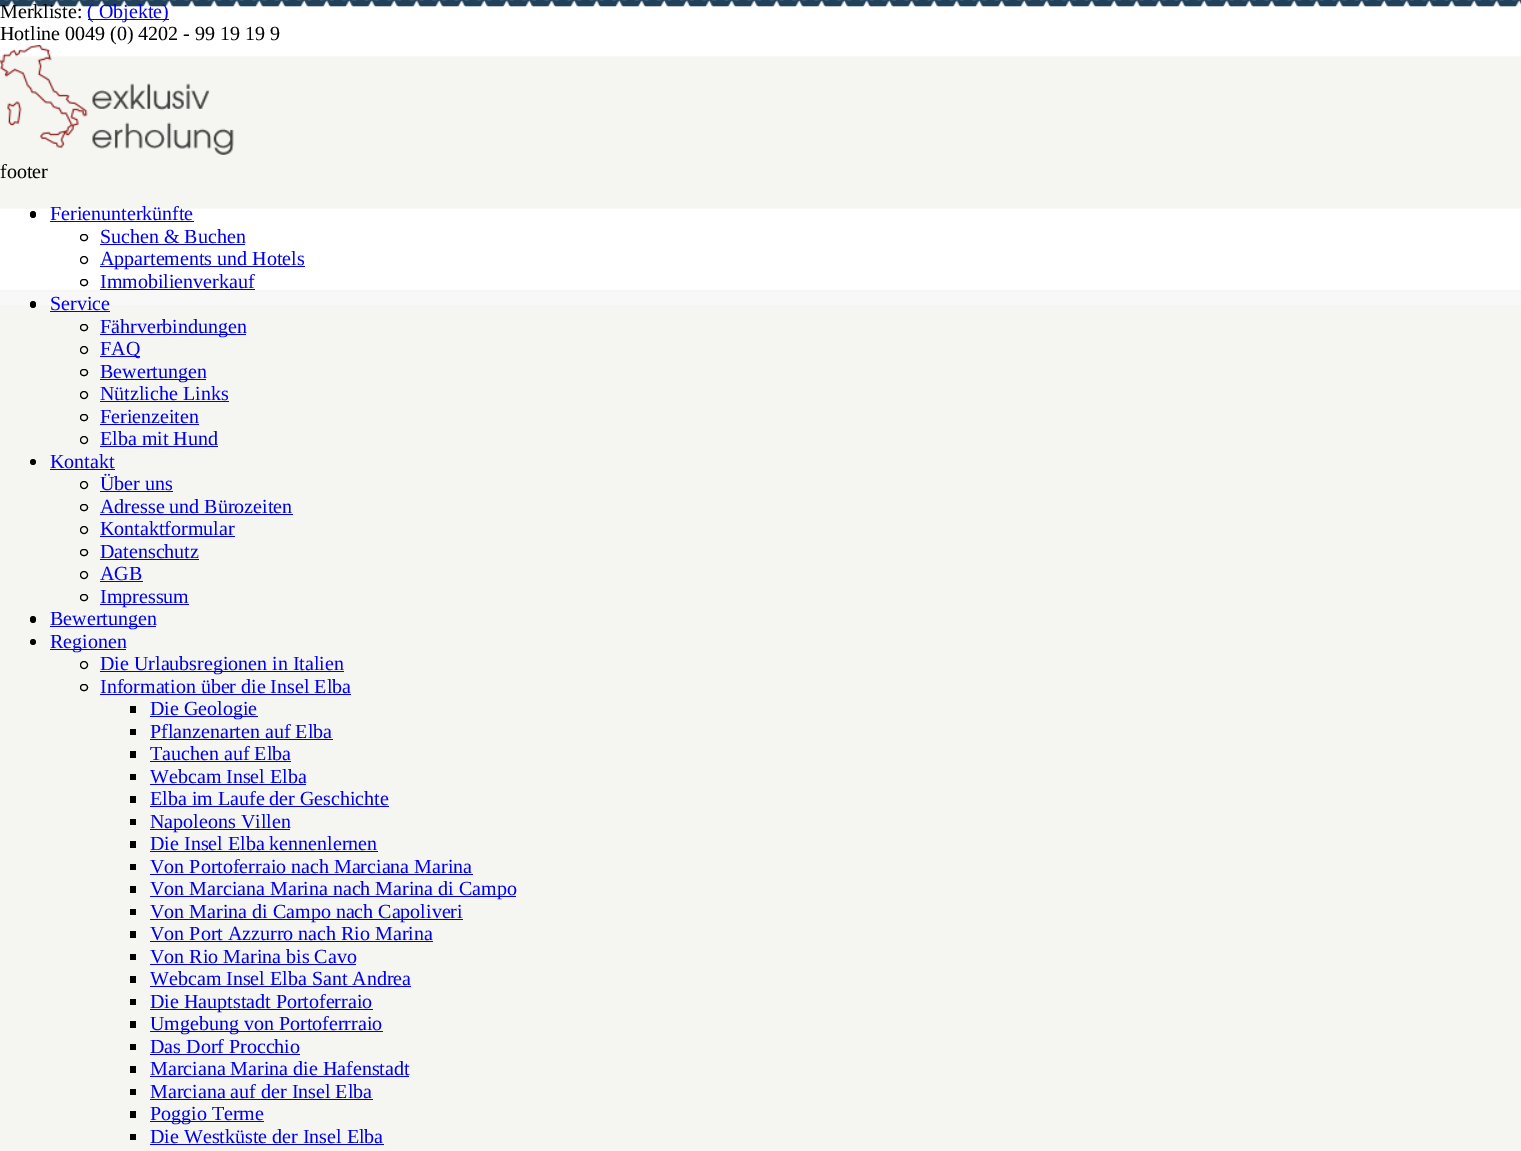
%!PS
<< /PageSize [1521 1151] >> setpagedevice
/rgb { 3 { 255 div 3 1 roll } repeat setrgbcolor } def
/font { [ exch dup neg 0 0 3 -1 roll 0 0 ] selectfont } def
/circle { newpath 0 360 arc closepath } def
/roundrect { 5 dict begin { /r /h /w /y /x } { exch def } forall
  x r add y moveto x w add y 2 copy h add r arct x w add y h add x 1 index r arct
  x y h add x y r arct x y 2 copy exch w add exch r arct closepath end } def
/picture { 5 dict begin { /h /w /y /x /name } { exch def } forall
  gsave x y translate w h scale
  w h 8 [w 0 0 h 0 0] name (r) file false 3 colorimage grestore end } def
0 1151 translate 1 -1 scale
4 setmiterlimit
245 246 241 rgb
0 0 1521 1151 rectfill
(img/1.rgb) 0 0 1521 305 picture
(img/2.rgb) 4 0 1517 7 picture
0 0 238 rgb
88 19 81 1 rectfill
(img/3.rgb) 0 45 234 110 picture
0 0 0 rgb
30 211 6 7 3 roundrect fill
0 0 238 rgb
50 221 144 1 rectfill
0 0 0 rgb
80.5 234.5 7 6 3 roundrect stroke
0 0 238 rgb
100 244 145 1 rectfill
0 0 0 rgb
84 260 3.5 circle stroke
0 0 238 rgb
100 266 205 1 rectfill
0 0 0 rgb
80.5 279.5 7 6 3 roundrect stroke
0 0 238 rgb
100 289 155 1 rectfill
0 0 0 rgb
30 301 6 7 3 roundrect fill
0 0 238 rgb
50 311 60 1 rectfill
0 0 0 rgb
80.5 324.5 7 6 3 roundrect stroke
0 0 238 rgb
100 334 146 1 rectfill
0 0 0 rgb
84 350 3.5 circle stroke
0 0 238 rgb
100 356 40 1 rectfill
0 0 0 rgb
80.5 369.5 7 6 3 roundrect stroke
0 0 238 rgb
100 379 106 1 rectfill
0 0 0 rgb
84 395 3.5 circle stroke
0 0 238 rgb
100 401 129 1 rectfill
0 0 0 rgb
80.5 414.5 7 6 3 roundrect stroke
0 0 238 rgb
100 424 99 1 rectfill
0 0 0 rgb
84 440 3.5 circle stroke
0 0 238 rgb
100 446 118 1 rectfill
0 0 0 rgb
33 462 3 circle fill
0 0 238 rgb
50 469 65 1 rectfill
0 0 0 rgb
84 485 3.5 circle stroke
0 0 238 rgb
100 491 73 1 rectfill
0 0 0 rgb
80.5 504.5 7 6 3 roundrect stroke
0 0 238 rgb
100 514 193 1 rectfill
0 0 0 rgb
84 530 3.5 circle stroke
0 0 238 rgb
100 536 135 1 rectfill
0 0 0 rgb
80.5 549.5 7 6 3 roundrect stroke
0 0 238 rgb
100 559 99 1 rectfill
0 0 0 rgb
84 575 3.5 circle stroke
0 0 238 rgb
100 581 43 1 rectfill
0 0 0 rgb
80.5 594.5 7 6 3 roundrect stroke
0 0 238 rgb
100 604 89 1 rectfill
0 0 0 rgb
30 616 6 7 3 roundrect fill
0 0 238 rgb
50 626 106 1 rectfill
0 0 0 rgb
33 642 3 circle fill
0 0 238 rgb
50 649 76 1 rectfill
0 0 0 rgb
84 665 3.5 circle stroke
0 0 238 rgb
100 671 244 1 rectfill
0 0 0 rgb
80.5 684.5 7 6 3 roundrect stroke
[
  [100 694 251 1 0 0 238]
  [130 706 6 7 0 0 0]
  [150 716 108 1 0 0 238]
  [130 729 6 6 0 0 0]
  [150 739 183 1 0 0 238]
  [130 751 6 7 0 0 0]
  [150 761 141 1 0 0 238]
  [130 774 6 6 0 0 0]
  [150 784 156 1 0 0 238]
  [130 796 6 7 0 0 0]
  [150 806 239 1 0 0 238]
  [130 819 6 6 0 0 0]
  [150 829 140 1 0 0 238]
  [130 841 6 7 0 0 0]
  [150 851 228 1 0 0 238]
  [130 864 6 6 0 0 0]
  [150 874 323 1 0 0 238]
  [130 886 6 7 0 0 0]
  [150 896 366 1 0 0 238]
  [130 909 6 6 0 0 0]
  [150 919 313 1 0 0 238]
  [130 931 6 7 0 0 0]
  [150 941 283 1 0 0 238]
  [130 954 6 6 0 0 0]
  [150 964 206 1 0 0 238]
  [130 976 6 7 0 0 0]
  [150 986 261 1 0 0 238]
  [130 999 6 6 0 0 0]
  [150 1009 223 1 0 0 238]
  [130 1021 6 7 0 0 0]
  [150 1031 233 1 0 0 238]
  [130 1044 6 6 0 0 0]
  [150 1054 150 1 0 0 238]
  [130 1066 6 7 0 0 0]
  [150 1076 259 1 0 0 238]
  [130 1089 6 6 0 0 0]
  [150 1099 223 1 0 0 238]
  [130 1111 6 7 0 0 0]
  [150 1121 114 1 0 0 238]
  [130 1134 6 6 0 0 0]
  [150 1144 234 1 0 0 238]
] { aload pop rgb rectfill } forall
/LiberationSerif-Regular 20 font
0 0 0 rgb
0 18 moveto (Merkliste:) show
0 0 238 rgb
87 18 moveto (\( Objekte\)) show
0 0 0 rgb
0 40 moveto (Hotline 0049 \(0\) 4202 - 99 19 19 9) show
0 178 moveto (footer) show
0 0 238 rgb
[
  [(Ferienunterkünfte) 50 220]
  [(Suchen & Buchen) 100 243]
  [(Appartements und Hotels) 100 265]
  [(Immobilienverkauf) 100 288]
  [(Service) 50 310]
  [(Fährverbindungen) 100 333]
  [(FAQ) 100 355]
  [(Bewertungen) 100 378]
  [(Nützliche Links) 100 400]
  [(Ferienzeiten) 100 423]
  [(Elba mit Hund) 100 445]
  [(Kontakt) 50 468]
  [(Über uns) 100 490]
  [(Adresse und Bürozeiten) 100 513]
  [(Kontaktformular) 100 535]
  [(Datenschutz) 100 558]
  [(AGB) 100 580]
  [(Impressum) 100 603]
  [(Bewertungen) 50 625]
  [(Regionen) 50 648]
  [(Die Urlaubsregionen in Italien) 100 670]
  [(Information über die Insel Elba) 100 693]
  [(Die Geologie) 150 715]
  [(Pflanzenarten auf Elba) 150 738]
  [(Tauchen auf Elba) 150 760]
  [(Webcam Insel Elba) 150 783]
  [(Elba im Laufe der Geschichte) 150 805]
  [(Napoleons Villen) 150 828]
  [(Die Insel Elba kennenlernen) 150 850]
  [(Von Portoferraio nach Marciana Marina) 150 873]
  [(Von Marciana Marina nach Marina di Campo) 150 895]
  [(Von Marina di Campo nach Capoliveri) 150 918]
  [(Von Port Azzurro nach Rio Marina) 150 940]
  [(Von Rio Marina bis Cavo) 150 963]
  [(Webcam Insel Elba Sant Andrea) 150 985]
  [(Die Hauptstadt Portoferraio) 150 1008]
  [(Umgebung von Portoferrraio) 150 1030]
  [(Das Dorf Procchio) 150 1053]
  [(Marciana Marina die Hafenstadt) 150 1075]
  [(Marciana auf der Insel Elba) 150 1098]
  [(Poggio Terme) 150 1120]
  [(Die Westküste der Insel Elba) 150 1143]
] { aload pop moveto show } forall
showpage
